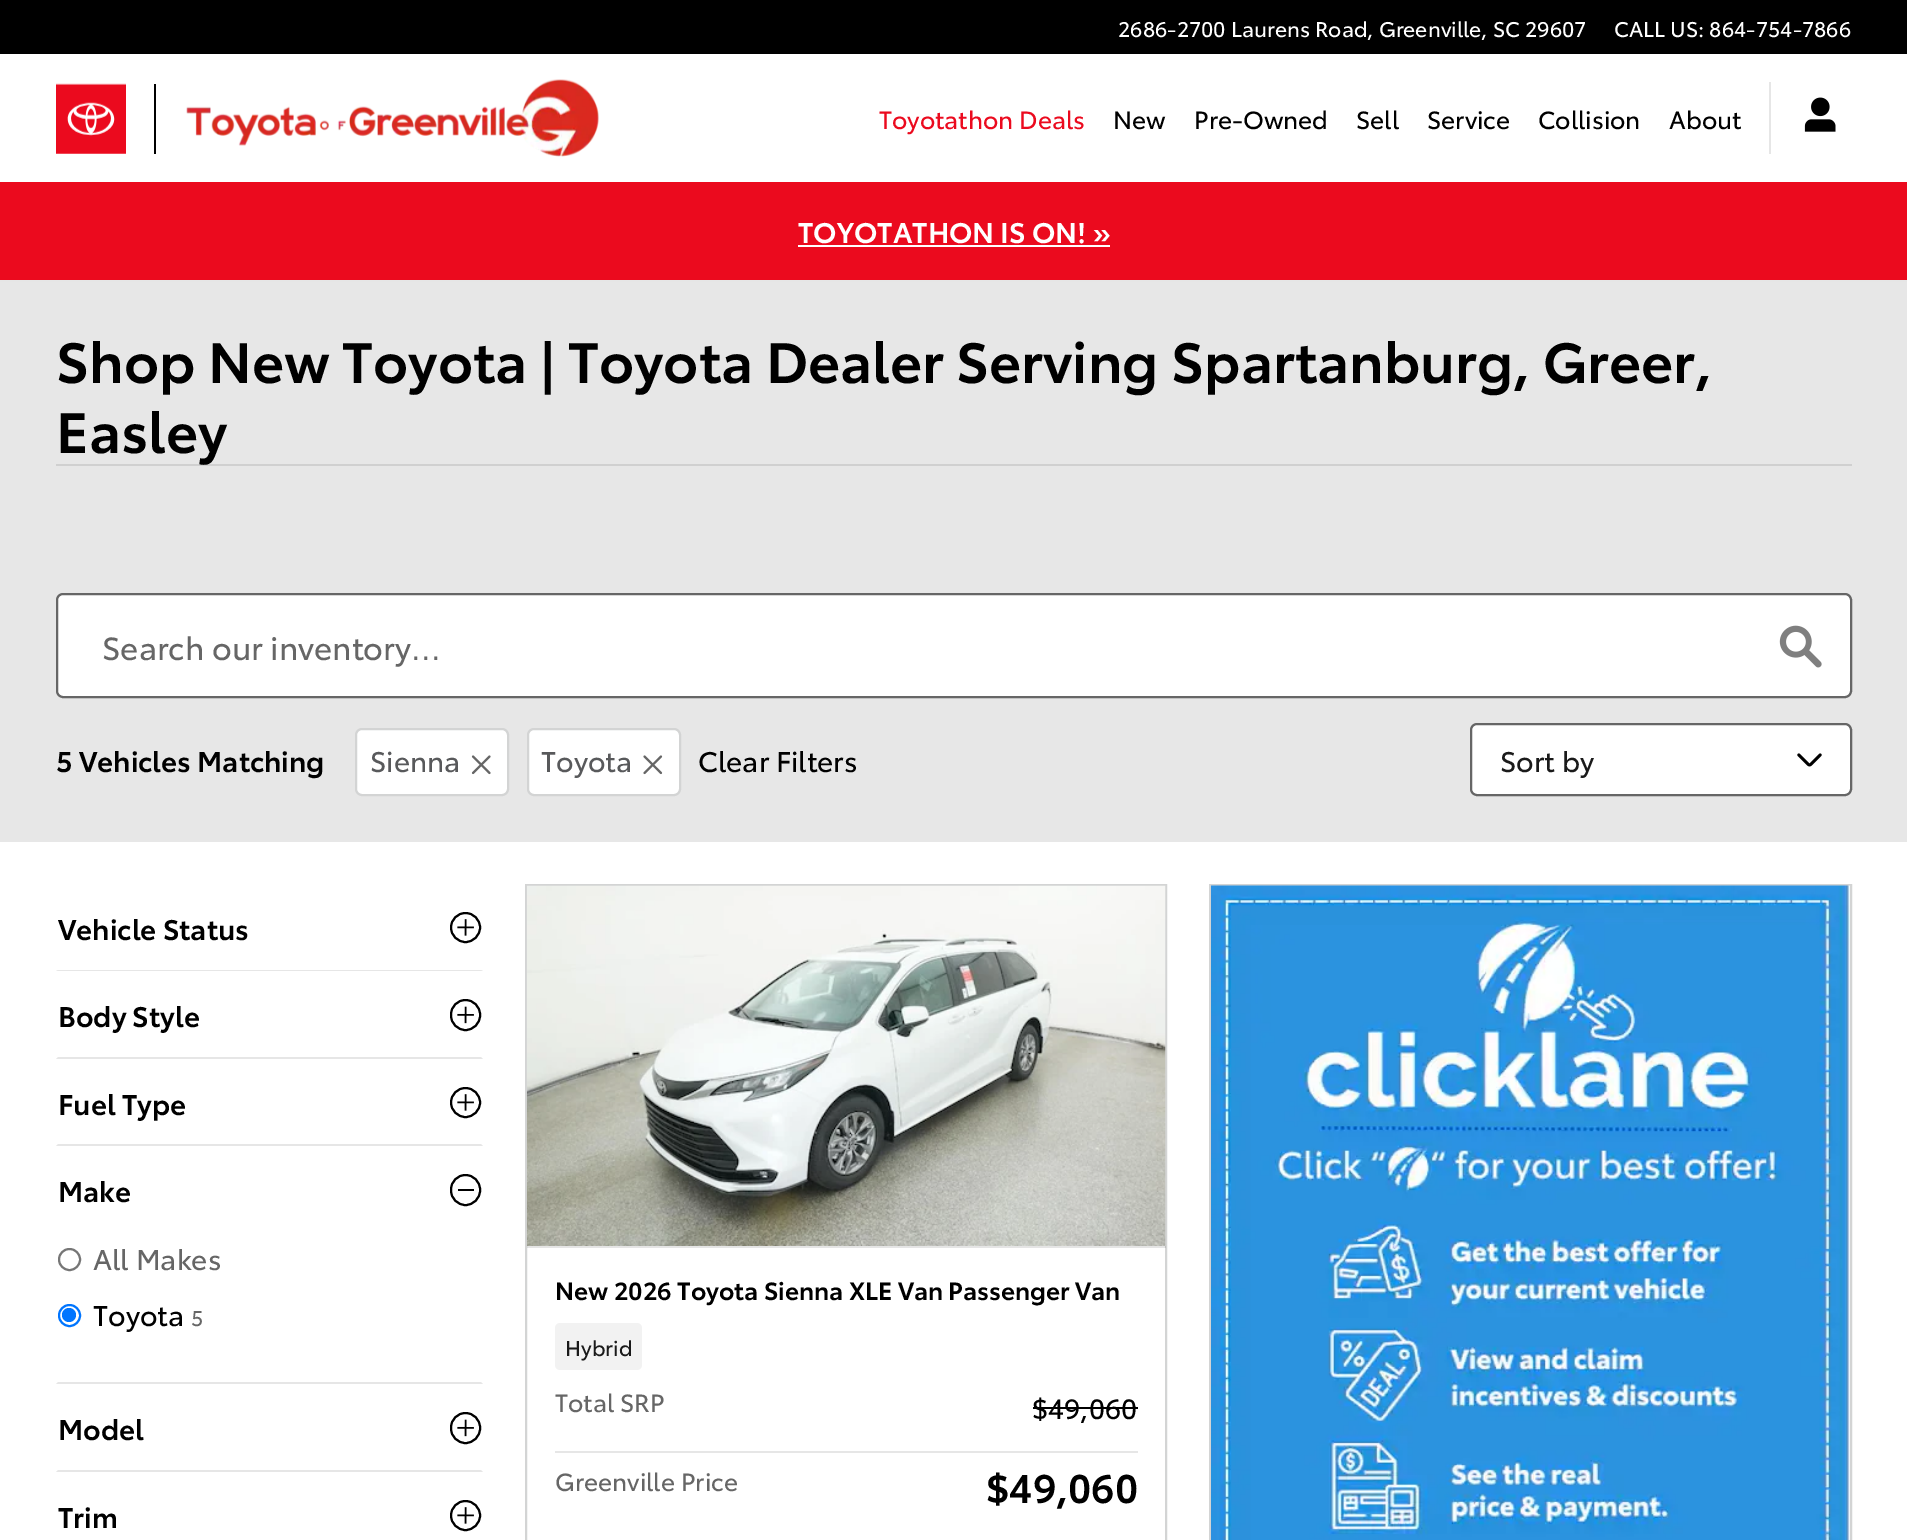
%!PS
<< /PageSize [1907 1540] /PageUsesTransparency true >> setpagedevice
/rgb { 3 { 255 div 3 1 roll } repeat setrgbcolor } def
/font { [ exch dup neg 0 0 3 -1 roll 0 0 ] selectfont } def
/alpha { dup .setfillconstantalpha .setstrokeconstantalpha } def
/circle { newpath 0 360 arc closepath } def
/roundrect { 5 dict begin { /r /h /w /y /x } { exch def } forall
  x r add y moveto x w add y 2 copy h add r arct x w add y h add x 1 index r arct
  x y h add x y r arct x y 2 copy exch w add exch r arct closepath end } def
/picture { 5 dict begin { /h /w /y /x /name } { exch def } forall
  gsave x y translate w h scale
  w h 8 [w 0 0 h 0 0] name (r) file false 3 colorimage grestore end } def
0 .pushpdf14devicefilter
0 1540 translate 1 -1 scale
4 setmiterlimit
255 255 255 rgb
0 0 1907 1540 rectfill
[
  [0 280 1907 2 230 230 230]
  [0 0 1907 54 0 0 0]
  [154 84 2 70 0 0 0]
] { aload pop rgb rectfill } forall
(img/1.rgb) 56 83 70 71 picture
(img/2.rgb) 186 79 413 78 picture
230 230 230 rgb
1769 82 2 72 rectfill
(img/3.rgb) 1804 97 32 35 picture
[
  [0 182 1907 98 235 10 30]
  [798 245 312 2 255 255 255]
  [0 282 1907 560 231 231 231]
  [56 464 1796 2 208 208 208]
] { aload pop rgb rectfill } forall
255 255 255 rgb
56 593 1796 105 7 roundrect fill
0.6 alpha
0 0 0 rgb
2 setlinewidth
57 594 1794 103 6 roundrect stroke
1 alpha
(img/4.rgb) 1779 625 43 43 picture
255 255 255 rgb
356 729 152 66 6 roundrect gsave fill grestore
211 212 212 rgb
stroke
(img/5.rgb) 471 755 20 20 picture
255 255 255 rgb
528 729 152 66 6 roundrect gsave fill grestore
211 212 212 rgb
stroke
(img/6.rgb) 643 755 20 20 picture
255 255 255 rgb
1470 723 382 73 7 roundrect fill
(img/7.rgb) 1797 753 25 14 picture
0.6 alpha
0 0 0 rgb
1471 724 380 71 6 roundrect stroke
1 alpha
230 230 230 rgb
483 971 moveto 56 971 lineto 58 970 lineto 481 970 lineto closepath fill
0 0 0 rgb
465.5 927.5 14.5 circle stroke
(img/8.rgb) 457 919 17 17 picture
230 230 230 rgb
483 1059 moveto 56 1059 lineto 58 1057 lineto 481 1057 lineto closepath fill
0 0 0 rgb
451 1000 29 30 14.5 roundrect stroke
(img/9.rgb) 457 1006 17 18 picture
230 230 230 rgb
483 1146 moveto 56 1146 lineto 58 1144 lineto 481 1144 lineto closepath fill
0 0 0 rgb
465.5 1102.5 14.5 circle stroke
(img/8.rgb) 457 1094 17 17 picture
230 230 230 rgb
483 1384 moveto 56 1384 lineto 58 1382 lineto 481 1382 lineto closepath fill
0 0 0 rgb
451 1175 29 30 14.5 roundrect stroke
458 1189 16 2 rectfill
118 118 118 rgb
69.5 1259.5 10.5 circle stroke
0 117 255 rgb
69.5 1315.5 10.5 circle stroke
69 1315 7 circle fill
230 230 230 rgb
483 1472 moveto 56 1472 lineto 58 1470 lineto 481 1470 lineto closepath fill
0 0 0 rgb
451 1413 29 30 14.5 roundrect stroke
(img/9.rgb) 457 1419 17 18 picture
465.5 1515.5 14.5 circle stroke
(img/8.rgb) 457 1507 17 17 picture
211 212 212 rgb
526 885 640 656 rectstroke
0.1 alpha
0 0 0 rgb
527 1246 639 2 rectfill
1 alpha
(img/10.rgb) 526 885 640 361 picture
242 242 242 rgb
555 1323 87 47 5 roundrect fill
0 0 0 rgb
1033 1407 105 2 rectfill
230 230 230 rgb
555 1451 583 2 rectfill
211 212 212 rgb
1210 885 641 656 rectstroke
(img/11.rgb) 1211 885 639 655 picture
/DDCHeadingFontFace-Regular 21 font
255 255 255 rgb
1118 37 moveto (2686-2700 Laurens Road, Greenville, SC 29607) show
1614 37 moveto (CALL US: 864-754-7866) show
/DDCHeadingFontFace-Regular 24.5 font
235 10 30 rgb
879 129 moveto (Toyotathon Deals) show
0 0 0 rgb
[
  [(New) 1113 129]
  [(Pre-Owned) 1194 129]
  [(Sell) 1356 129]
  [(Service) 1427 129]
  [(Collision) 1538 129]
  [(About) 1669 129]
] { aload pop moveto show } forall
/DDCHeadingFontFace-SemiBold 28 font
255 255 255 rgb
798 243 moveto (TOYOTATHON IS ON! ») show
/DDCHeadingFontFace-SemiBold 56 font
0 0 0 rgb
56 383 moveto (Shop New Toyota | Toyota Dealer Serving Spartanburg, Greer,) show
56 453 moveto (Easley) show
/DDCHeadingFontFace-Regular 31.5 font
102 102 102 rgb
102 660 moveto (Search our inventory) show
/LiberationSans-Regular 31.5 font
410 660 moveto (…) show
/DDCHeadingFontFace-SemiBold 28 font
0 0 0 rgb
56 772 moveto (5 Vehicles Matching) show
/DDCHeadingFontFace-Regular 28 font
88 89 91 rgb
370 772 moveto (Sienna) show
541 772 moveto (Toyota) show
0 0 0 rgb
698 772 moveto (Clear Filters) show
26 26 26 rgb
1500 772 moveto (Sort by) show
/DDCHeadingFontFace-SemiBold 28 font
0 0 0 rgb
[
  [(Vehicle Status) 58 940]
  [(Body Style) 58 1027]
  [(Fuel Type) 58 1115]
  [(Make) 58 1202]
] { aload pop moveto show } forall
/DDCHeadingFontFace-Regular 28 font
102 102 102 rgb
93 1270 moveto (All Makes) show
0 0 0 rgb
93 1326 moveto (Toyota) show
/DDCHeadingFontFace-Regular 21 font
102 102 102 rgb
191 1326 moveto (5) show
/DDCHeadingFontFace-SemiBold 28 font
0 0 0 rgb
58 1440 moveto (Model) show
58 1528 moveto (Trim) show
/DDCHeadingFontFace-SemiBold 24.5 font
555 1300 moveto (New 2026 Toyota Sienna XLE Van Passenger Van) show
/DDCHeadingFontFace-Regular 21 font
26 26 26 rgb
565 1356 moveto (Hybrid) show
/DDCHeadingFontFace-Regular 24.5 font
102 102 102 rgb
555 1412 moveto (Total SRP) show
/DDCHeadingFontFace-Regular 27.5 font
0 0 0 rgb
1032 1419 moveto ($49,060) show
/DDCHeadingFontFace-Regular 24.5 font
102 102 102 rgb
555 1491 moveto (Greenville Price) show
/DDCHeadingFontFace-SemiBold 39.5 font
0 0 0 rgb
986 1503 moveto ($49,060) show
.poppdf14devicefilter showpage
